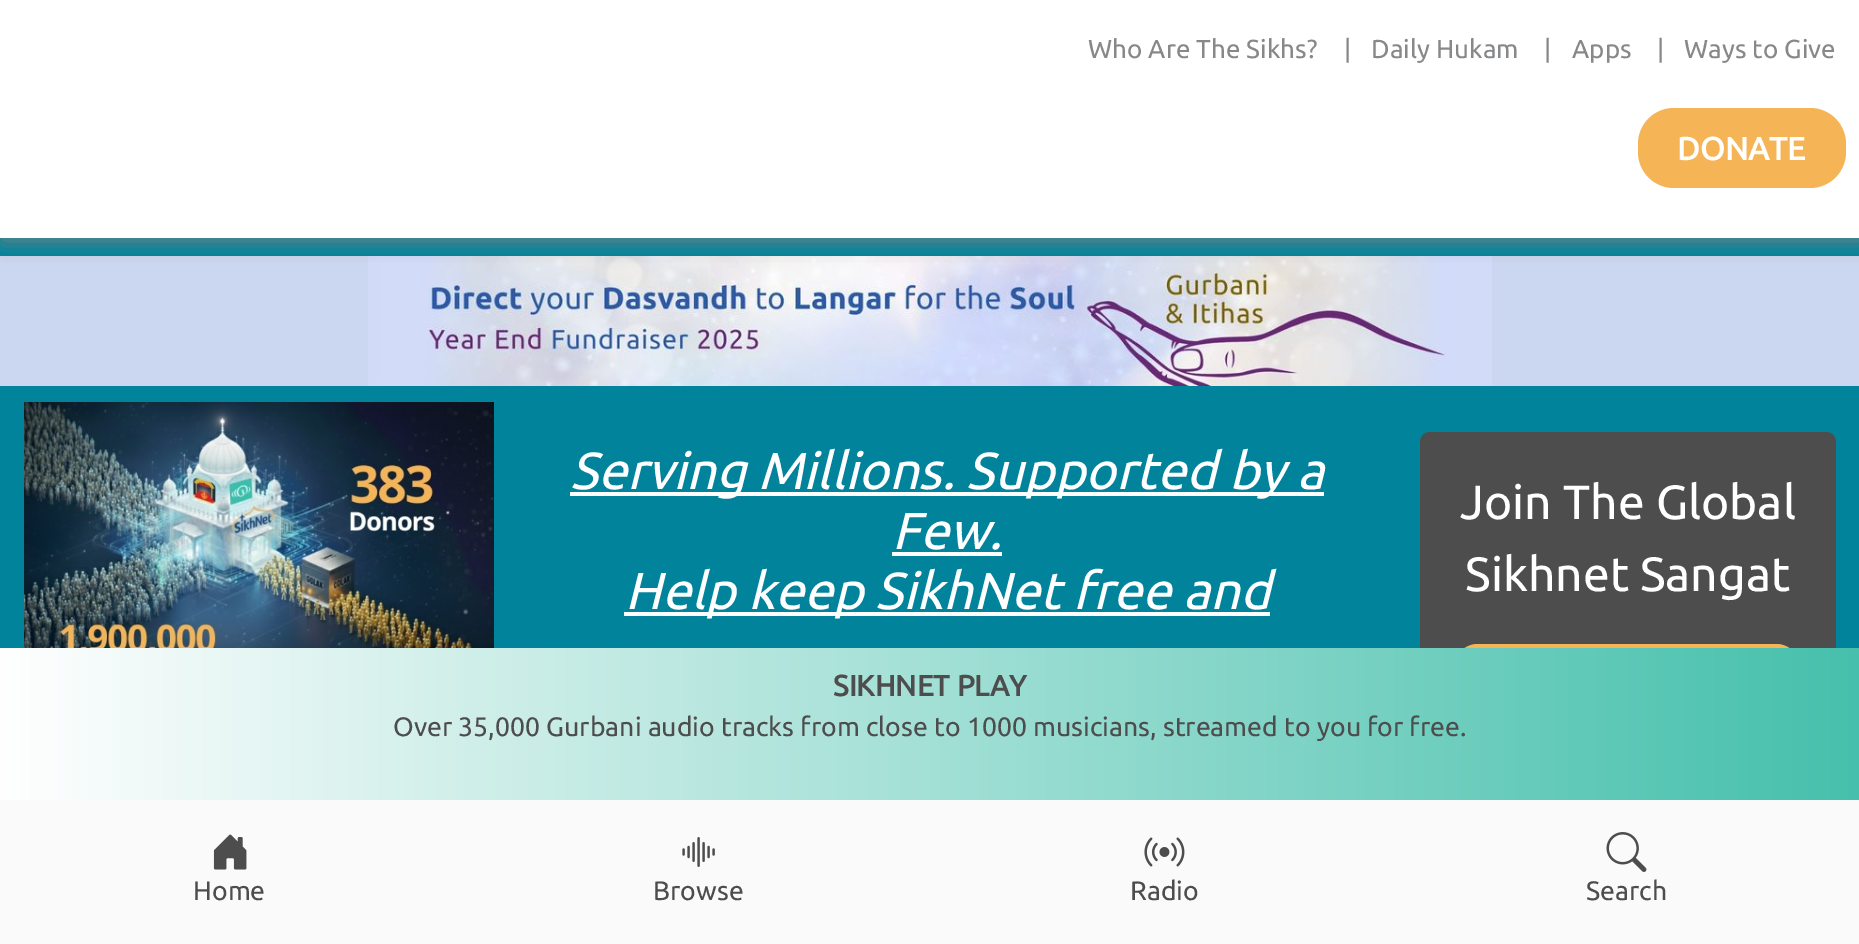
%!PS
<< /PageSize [1859 944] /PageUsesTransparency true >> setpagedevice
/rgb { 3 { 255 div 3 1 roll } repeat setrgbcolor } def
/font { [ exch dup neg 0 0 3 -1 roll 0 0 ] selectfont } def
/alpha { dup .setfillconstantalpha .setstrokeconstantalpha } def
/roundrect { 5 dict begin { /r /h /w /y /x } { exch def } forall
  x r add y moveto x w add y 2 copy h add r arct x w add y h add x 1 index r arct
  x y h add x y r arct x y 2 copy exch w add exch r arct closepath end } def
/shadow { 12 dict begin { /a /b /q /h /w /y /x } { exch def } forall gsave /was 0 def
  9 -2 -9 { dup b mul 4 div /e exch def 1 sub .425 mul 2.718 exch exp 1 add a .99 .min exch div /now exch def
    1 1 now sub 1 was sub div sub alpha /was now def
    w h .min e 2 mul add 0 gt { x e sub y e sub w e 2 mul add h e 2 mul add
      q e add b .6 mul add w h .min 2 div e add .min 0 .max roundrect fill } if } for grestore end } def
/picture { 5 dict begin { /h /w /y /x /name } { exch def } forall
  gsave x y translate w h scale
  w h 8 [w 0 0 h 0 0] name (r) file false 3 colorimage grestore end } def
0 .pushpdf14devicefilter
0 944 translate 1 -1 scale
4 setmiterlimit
0 131 155 rgb
0 0 1859 944 rectfill
203 214 240 rgb
0 256 1859 130 rectfill
(img/1.rgb) 368 256 1124 130 picture
128 128 128 rgb
2 2 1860 238 0 10 1 shadow
255 255 255 rgb
0 0 1859 238 rectfill
245 180 86 rgb
1638 108 208 80 36 roundrect fill
(img/2.rgb) 24 402 470 246 picture
[
  [570 492 754 4 255 255 255]
  [892 552 110 4 255 255 255]
  [624 612 646 4 255 255 255]
] { aload pop rgb rectfill } forall
77 77 78 rgb
1420 432 416 312 10 roundrect fill
245 180 86 rgb
1454 644 346 64 24 roundrect fill
gsave 0 648 moveto 1859 648 lineto 1859 800 lineto 0 800 lineto closepath clip newpath
<< /ShadingType 2 /ColorSpace /DeviceRGB /Coords [0 796 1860 796] /Extend [true true] /Function << /FunctionType 2 /Domain [0 1] /C0 [1 1 1] /C1 [0.275 0.753 0.675] /N 1 >> >> shfill grestore
250 250 250 rgb
0 800 1859 144 rectfill
(img/3.rgb) 213 834 34 36 picture
(img/4.rgb) 682 837 33 30 picture
(img/5.rgb) 1144 837 41 30 picture
(img/6.rgb) 1606 832 41 40 picture
/Ubuntu-Regular 26 font
135 136 138 rgb
[
  [(Who Are The Sikhs?) 1088 58]
  [(|) 1344 58]
  [(Daily Hukam) 1371 58]
  [(|) 1544 58]
  [(Apps) 1572 58]
  [(|) 1657 58]
  [(Ways to Give) 1684 58]
] { aload pop moveto show } forall
/Ubuntu-Bold 32 font
255 255 255 rgb
1677 160 moveto (DONATE) show
/Ubuntu-Italic 52 font
[
  [(Serving Millions. Supported by a) 570 489]
  [(Few.) 892 549]
  [(Help keep SikhNet free and) 625 609]
] { aload pop moveto show } forall
/Ubuntu-Regular 48 font
1460 519 moveto (Join The Global) show
1465 591 moveto (Sikhnet Sangat) show
/Ubuntu-Bold 29.25 font
77 77 78 rgb
833 696 moveto (SIKHNET PLAY) show
/Ubuntu-Regular 26.65 font
[
  [(Over 35,000 Gurbani audio tracks from close to 1000 musicians, streamed to you for free.) 393 736]
  [(Home) 193 900]
  [(Browse) 653 900]
  [(Radio) 1130 900]
  [(Search) 1586 900]
] { aload pop moveto show } forall
.poppdf14devicefilter showpage
